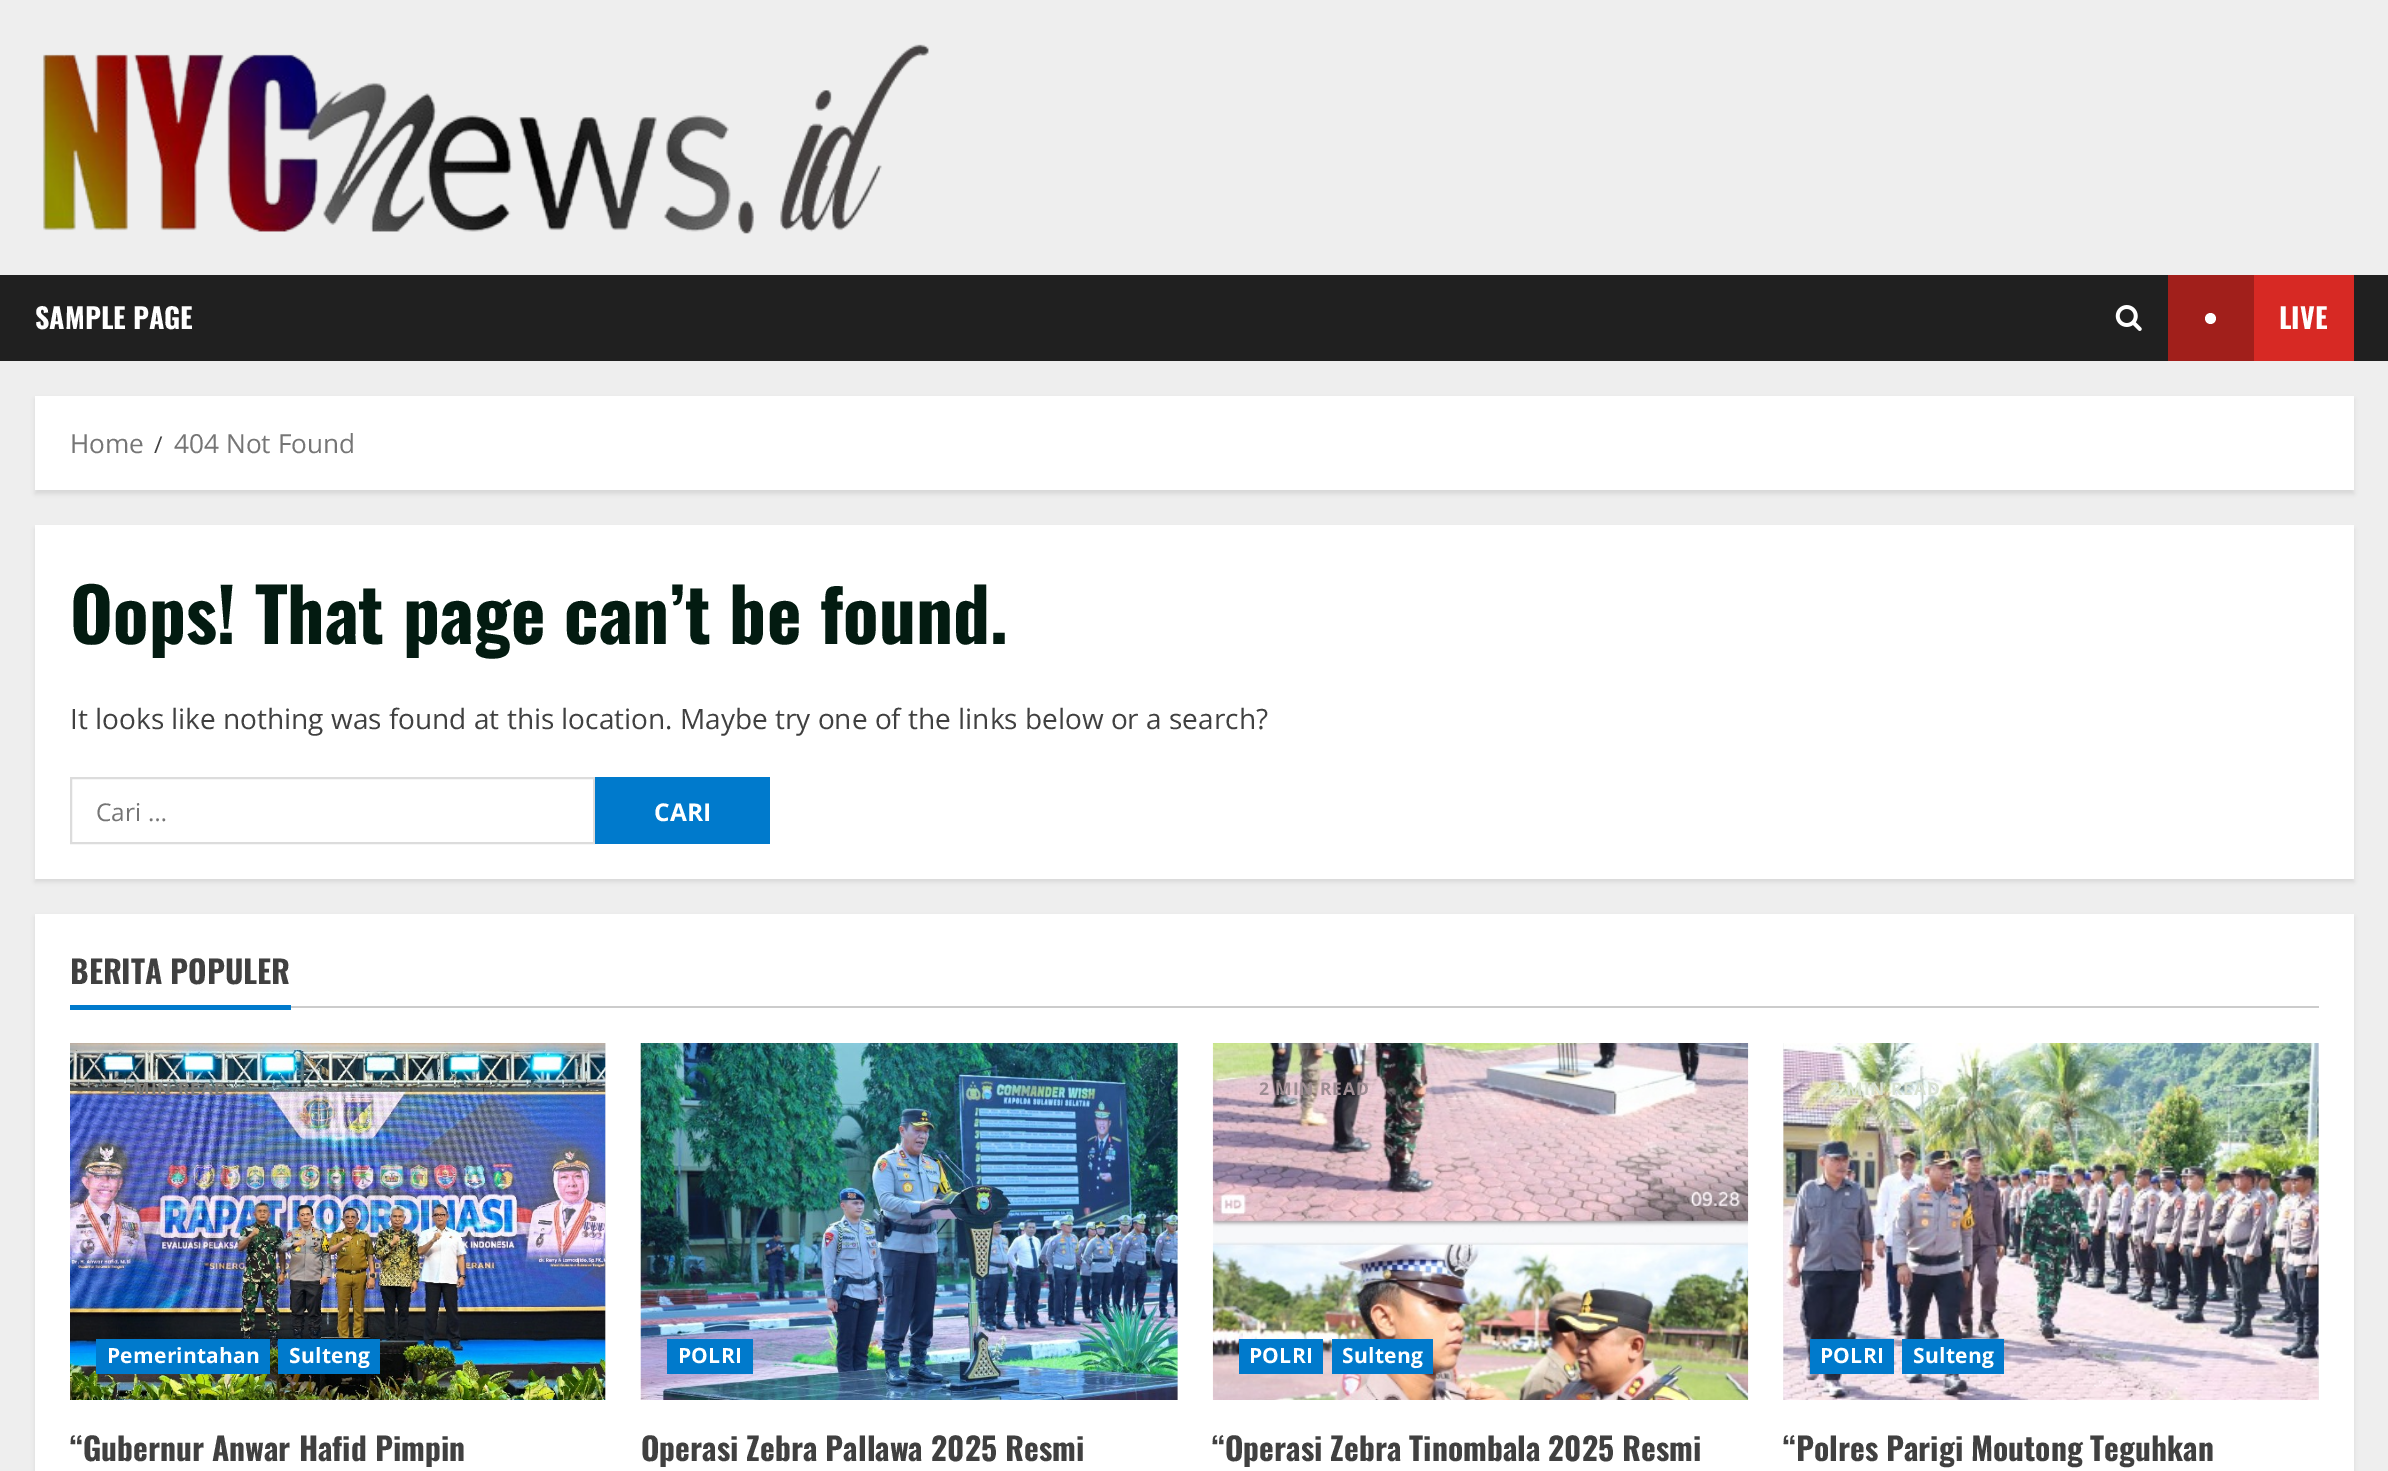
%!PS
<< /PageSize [2388 1471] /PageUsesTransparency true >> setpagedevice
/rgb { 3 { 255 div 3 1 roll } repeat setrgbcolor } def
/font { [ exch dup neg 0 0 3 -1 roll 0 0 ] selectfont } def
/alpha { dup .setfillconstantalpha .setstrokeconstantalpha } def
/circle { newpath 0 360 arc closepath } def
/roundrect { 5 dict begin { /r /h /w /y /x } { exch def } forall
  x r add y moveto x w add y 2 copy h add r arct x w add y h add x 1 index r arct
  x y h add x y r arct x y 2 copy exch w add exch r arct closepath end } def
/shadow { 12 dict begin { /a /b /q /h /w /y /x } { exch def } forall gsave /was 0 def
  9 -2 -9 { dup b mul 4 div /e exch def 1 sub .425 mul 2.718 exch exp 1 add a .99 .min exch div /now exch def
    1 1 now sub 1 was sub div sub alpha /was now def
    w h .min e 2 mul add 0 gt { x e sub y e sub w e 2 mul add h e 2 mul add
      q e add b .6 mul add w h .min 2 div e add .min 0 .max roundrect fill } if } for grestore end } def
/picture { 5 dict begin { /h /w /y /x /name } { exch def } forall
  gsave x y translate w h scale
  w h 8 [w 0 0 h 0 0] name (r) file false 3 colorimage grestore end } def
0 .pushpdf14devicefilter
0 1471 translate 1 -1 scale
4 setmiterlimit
238 238 238 rgb
0 0 2388 1471 rectfill
(img/1.rgb) 43 44 886 190 picture
32 32 32 rgb
0 275 2388 86 rectfill
(img/2.rgb) 2115 305 27 26 picture
215 41 36 rgb
2254 275 100 86 rectfill
161 31 27 rgb
2168 275 86 86 rectfill
255 255 255 rgb
2210.5 318.5 5.5 circle fill
0 0 0 rgb
35 399 2319 95 0 2 0.08 shadow
255 255 255 rgb
35 396 2319 94 rectfill
0 0 0 rgb
35 529 2319 353 0 2 0.08 shadow
255 255 255 rgb
35 525 2319 354 rectfill
220 220 220 rgb
2 setlinewidth
71 778 523 65 rectstroke
0 122 204 rgb
595 777 175 67 rectfill
0 0 0 rgb
35 917 2319 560 0 2 0.08 shadow
[
  [35 914 2319 557 255 255 255]
  [291 1006 2028 2 204 204 204]
  [70 1005 221 5 0 122 204]
  [605 1043 1 357 236 236 236]
] { aload pop rgb rectfill } forall
(img/3.rgb) 70 1043 536 357 picture
[
  [96 1339 174 35 0 122 204]
  [278 1339 102 35 0 122 204]
  [1177 1043 1 357 236 236 236]
] { aload pop rgb rectfill } forall
(img/4.rgb) 640 1043 538 357 picture
0 122 204 rgb
667 1339 86 35 rectfill
(img/5.rgb) 1212 1043 537 357 picture
[
  [1239 1339 84 35 0 122 204]
  [1332 1339 101 35 0 122 204]
  [1783 1043 536 357 236 236 236]
] { aload pop rgb rectfill } forall
(img/6.rgb) 1783 1043 536 357 picture
0 122 204 rgb
1810 1339 84 35 rectfill
1902 1339 102 35 rectfill
/Oswald-Bold 28 font
255 255 255 rgb
35 329 moveto (SAMPLE PAGE) show
2279 329 moveto (LIVE) show
/OpenSans-Regular 26.25 font
117 117 117 rgb
70 453 moveto (Home) show
/OpenSans-Regular 23 font
64 64 64 rgb
154 453 moveto (/) show
/OpenSans-Regular 26.25 font
117 117 117 rgb
174 453 moveto (404 Not Found) show
/Oswald-Bold 73.5 font
3 27 17 rgb
70 644 moveto (Oops! That page can’t be found.) show
/OpenSans-Regular 28 font
64 64 64 rgb
70 729 moveto (It looks like nothing was found at this location. Maybe try one of the links below or a search?) show
/OpenSans-Regular 24.5 font
117 117 117 rgb
96 821 moveto (Cari …) show
/OpenSans-Bold 24.5 font
255 255 255 rgb
654 821 moveto (CARI) show
/Oswald-Bold 31.5 font
64 64 64 rgb
70 984 moveto (BERITA POPULER) show
/OpenSans-Bold 17.5 font
126 125 122 rgb
117 1095 moveto 0.9 0 (2 MIN READ) ashow
/OpenSans-Bold 21 font
255 255 255 rgb
107 1363 moveto 0.25 0 (Pemerintahan) ashow
289 1363 moveto 0.25 0 (Sulteng) ashow
/Oswald-Bold 31.5 font
64 64 64 rgb
70 1461 moveto (“Gubernur Anwar Hafid Pimpin) show
/OpenSans-Bold 21 font
255 255 255 rgb
678 1363 moveto 0.25 0 (POLRI) ashow
/Oswald-Bold 31.5 font
64 64 64 rgb
641 1461 moveto (Operasi Zebra Pallawa 2025 Resmi) show
/OpenSans-Bold 17.5 font
157 140 146 rgb
1259 1095 moveto 0.9 0 (2 MIN READ) ashow
/OpenSans-Bold 21 font
255 255 255 rgb
1249 1363 moveto 0.25 0 (POLRI) ashow
1342 1363 moveto 0.25 0 (Sulteng) ashow
/Oswald-Bold 31.5 font
64 64 64 rgb
1212 1461 moveto (“Operasi Zebra Tinombala 2025 Resmi) show
/OpenSans-Bold 17.5 font
216 225 210 rgb
1830 1095 moveto 0.9 0 (2 MIN READ) ashow
/OpenSans-Bold 21 font
255 255 255 rgb
1820 1363 moveto 0.25 0 (POLRI) ashow
1913 1363 moveto 0.25 0 (Sulteng) ashow
/Oswald-Bold 31.5 font
64 64 64 rgb
1783 1461 moveto (“Polres Parigi Moutong Teguhkan) show
.poppdf14devicefilter showpage
